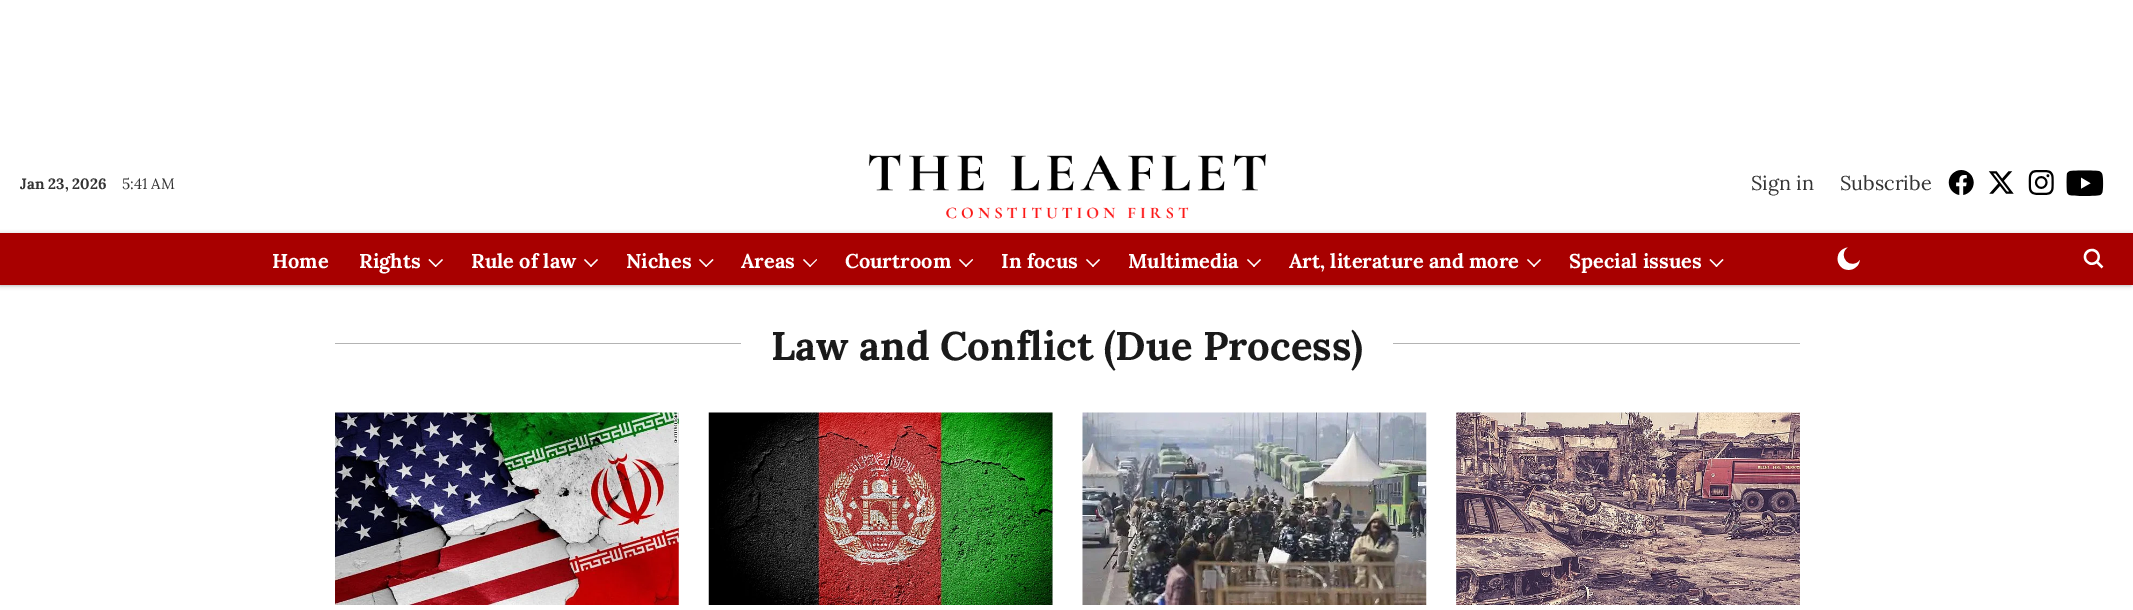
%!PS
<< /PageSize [2133 610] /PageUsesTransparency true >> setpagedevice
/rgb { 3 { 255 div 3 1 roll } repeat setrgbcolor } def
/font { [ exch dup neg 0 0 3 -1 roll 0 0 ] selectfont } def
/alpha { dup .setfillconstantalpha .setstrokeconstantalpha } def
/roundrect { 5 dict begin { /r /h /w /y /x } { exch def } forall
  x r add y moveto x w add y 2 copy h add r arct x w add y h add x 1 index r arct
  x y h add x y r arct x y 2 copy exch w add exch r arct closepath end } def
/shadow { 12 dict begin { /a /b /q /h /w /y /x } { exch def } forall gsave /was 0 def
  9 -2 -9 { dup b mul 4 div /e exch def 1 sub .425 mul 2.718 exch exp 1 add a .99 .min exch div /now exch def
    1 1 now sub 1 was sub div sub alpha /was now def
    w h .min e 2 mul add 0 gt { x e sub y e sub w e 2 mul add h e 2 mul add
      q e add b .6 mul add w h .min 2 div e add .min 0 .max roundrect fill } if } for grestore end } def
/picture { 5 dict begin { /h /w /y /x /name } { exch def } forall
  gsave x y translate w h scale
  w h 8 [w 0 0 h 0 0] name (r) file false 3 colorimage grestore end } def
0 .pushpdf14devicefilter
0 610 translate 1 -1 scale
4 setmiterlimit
255 255 255 rgb
0 0 2133 610 rectfill
(img/1.rgb) 868 153 398 66 picture
(img/2.rgb) 1948 170 26 25 picture
(img/3.rgb) 1988 171 26 23 picture
(img/4.rgb) 2028 170 26 25 picture
(img/5.rgb) 2066 170 38 26 picture
0 0 0 rgb
0 235 2131 50 0 2.5 0.39 shadow
168 0 0 rgb
0 233 2133 52 rectfill
255 255 255 rgb
442 259 moveto 443 260 lineto 435.5 267 lineto 435 266 lineto closepath fill
429.5 259 moveto 436.5 266 lineto 435.5 267 lineto 428.5 260 lineto closepath fill
597 259 moveto 598 260 lineto 591 267 lineto 590 266 lineto closepath fill
585 259 moveto 592 266 lineto 591 267 lineto 584 260 lineto closepath fill
712.5 259 moveto 713.5 260 lineto 706 267 lineto 705.5 266 lineto closepath fill
700 259 moveto 707 266 lineto 706 267 lineto 699 260 lineto closepath fill
816.5 259 moveto 817 260 lineto 810 267 lineto 809.5 266 lineto closepath fill
804 259 moveto 811 266 lineto 810 267 lineto 803 260 lineto closepath fill
972.5 259 moveto 973 260 lineto 966 267 lineto 965 266 lineto closepath fill
960 259 moveto 967 266 lineto 966 267 lineto 959 260 lineto closepath fill
1099 259 moveto 1100 260 lineto 1093 267 lineto 1092 266 lineto closepath fill
1087 259 moveto 1094 266 lineto 1093 267 lineto 1086 260 lineto closepath fill
1260 259 moveto 1261 260 lineto 1254 267 lineto 1253 266 lineto closepath fill
1248 259 moveto 1255 266 lineto 1254 267 lineto 1247 260 lineto closepath fill
1540 259 moveto 1541 260 lineto 1534 267 lineto 1533 266 lineto closepath fill
1528 259 moveto 1535 266 lineto 1534 267 lineto 1527 260 lineto closepath fill
1722.5 259 moveto 1723.5 260 lineto 1716.5 267 lineto 1715.5 266 lineto closepath fill
1710.5 259 moveto 1717.5 266 lineto 1716.5 267 lineto 1709.5 260 lineto closepath fill
(img/6.rgb) 1837 247 23 23 picture
(img/7.rgb) 2083 248 21 21 picture
179 179 179 rgb
335 343 406 1 rectfill
1393 343 407 1 rectfill
(img/8.rgb) 335 412 344 193 picture
240 240 240 rgb
1052 413 1 192 rectfill
(img/9.rgb) 708 412 345 193 picture
(img/10.rgb) 1082 412 345 193 picture
(img/11.rgb) 1456 412 344 193 picture
/Lora-Bold 15 font
51 51 51 rgb
20 189 moveto (Jan 23, 2026) show
/Lora-Regular 15 font
122 189 moveto (5:41 AM) show
/Lora-Regular 20 font
1751 190 moveto (Sign in) show
1840 190 moveto (Subscribe) show
/Lora-Bold 20 font
255 255 255 rgb
[
  [(Home) 272 268]
  [(Rights) 359 268]
  [(Rule of law) 471 268]
  [(Niches) 626 268]
  [(Areas) 741 268]
  [(Courtroom) 845 268]
  [(In focus) 1001 268]
  [(Multimedia) 1128 268]
  [(Art, literature and more) 1289 268]
  [(Special issues) 1569 268]
] { aload pop moveto show } forall
/Lora-Bold 40 font
26 26 26 rgb
771 360 moveto (Law and Conflict \(Due Process\)) show
.poppdf14devicefilter showpage
